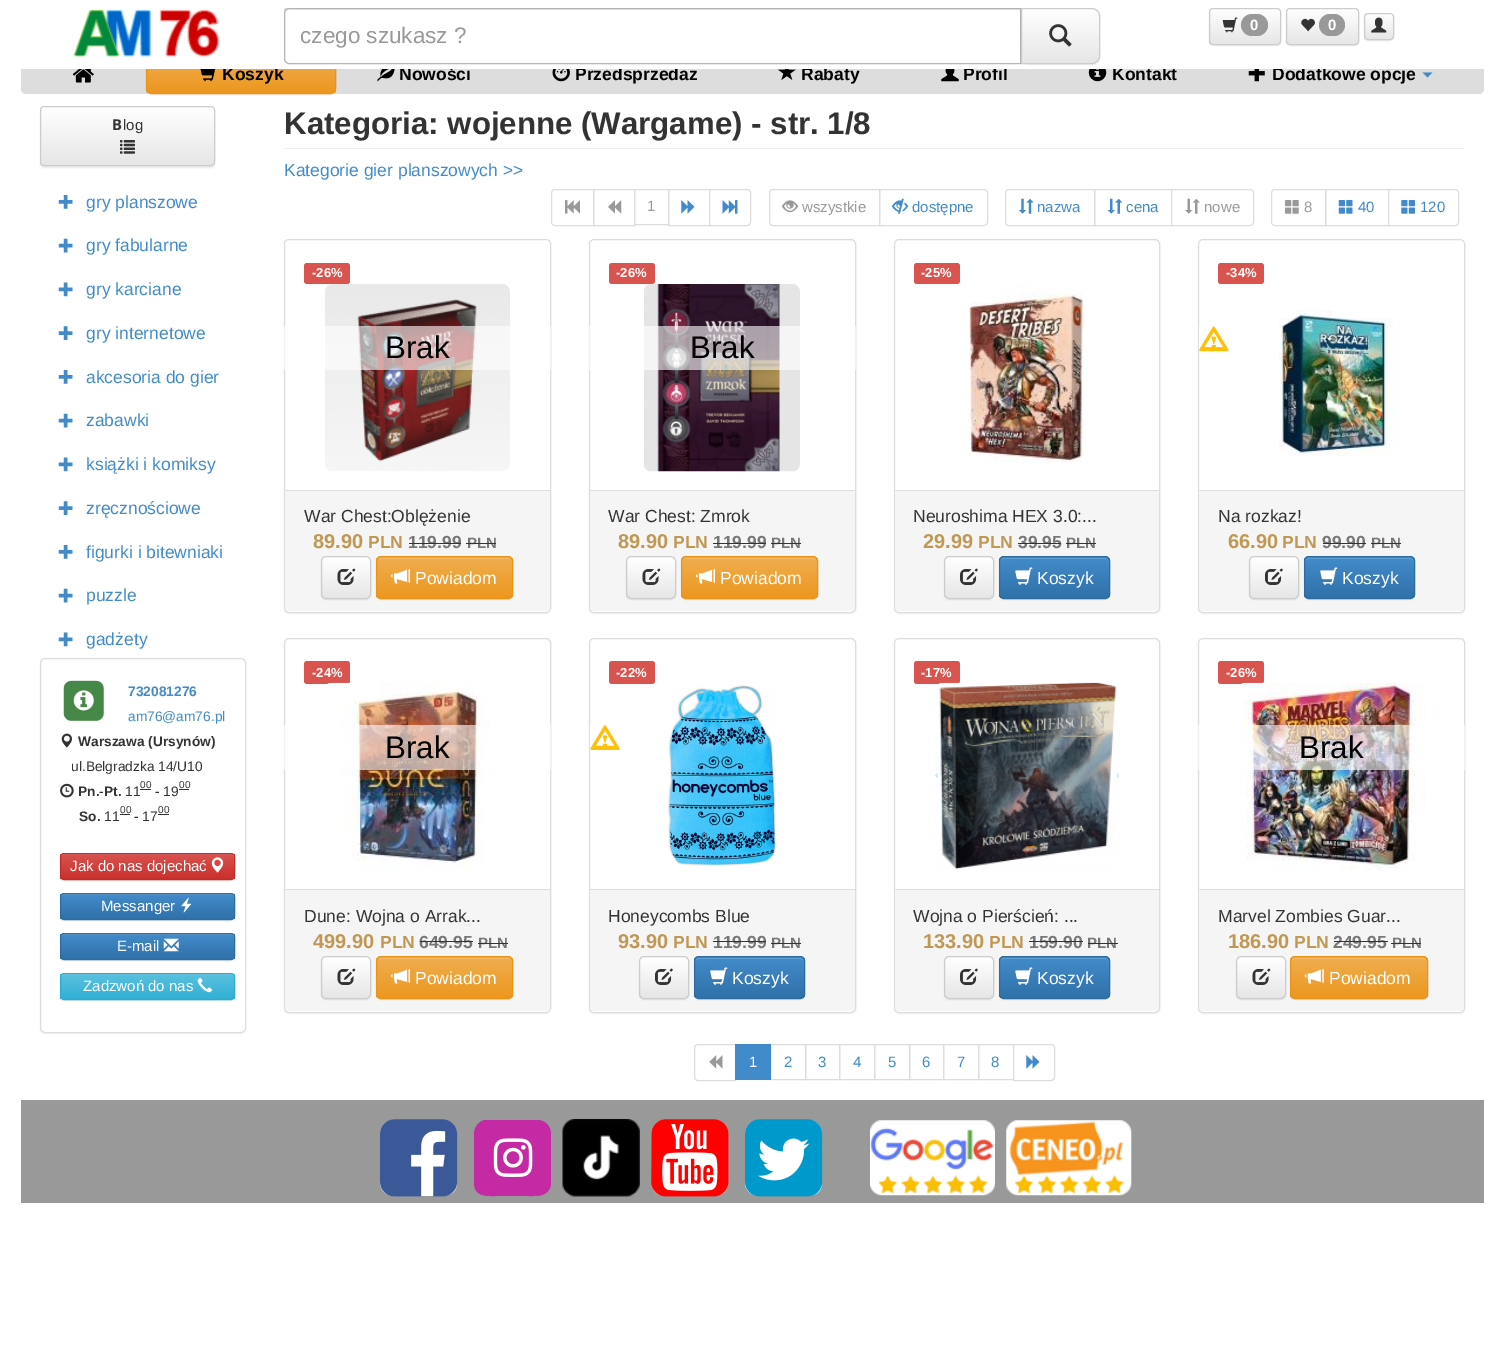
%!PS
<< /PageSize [1505 1349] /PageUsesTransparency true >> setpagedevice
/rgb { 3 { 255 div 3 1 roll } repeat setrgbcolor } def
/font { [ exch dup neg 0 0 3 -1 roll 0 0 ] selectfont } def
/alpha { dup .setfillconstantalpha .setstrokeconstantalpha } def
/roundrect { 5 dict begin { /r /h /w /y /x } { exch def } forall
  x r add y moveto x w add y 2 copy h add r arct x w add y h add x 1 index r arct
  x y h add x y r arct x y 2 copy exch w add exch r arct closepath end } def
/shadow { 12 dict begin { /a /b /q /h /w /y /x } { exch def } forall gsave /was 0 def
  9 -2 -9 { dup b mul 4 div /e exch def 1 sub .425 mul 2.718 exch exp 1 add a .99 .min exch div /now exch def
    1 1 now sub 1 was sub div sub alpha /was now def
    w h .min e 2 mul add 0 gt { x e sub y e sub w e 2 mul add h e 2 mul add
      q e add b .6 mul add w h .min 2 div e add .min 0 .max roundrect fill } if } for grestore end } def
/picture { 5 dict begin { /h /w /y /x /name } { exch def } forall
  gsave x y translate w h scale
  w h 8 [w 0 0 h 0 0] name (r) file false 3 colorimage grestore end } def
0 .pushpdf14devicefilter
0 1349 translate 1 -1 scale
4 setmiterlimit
255 255 255 rgb
0 0 1505 1349 rectfill
214 214 214 rgb
284.5 8.5 235 31 2 roundrect stroke
0 0 0 rgb
1209 9 72 37 4 0.5 0.07 shadow
gsave
1209 8 72 37 4 roundrect clip newpath
gsave 1209 9 moveto 1281 9 lineto 1281 44 lineto 1209 44 lineto closepath clip newpath
<< /ShadingType 2 /ColorSpace /DeviceRGB /Coords [1245 9 1245 44] /Extend [true true] /Function << /FunctionType 2 /Domain [0 1] /C0 [1 1 1] /C1 [0.902 0.902 0.902] /N 1 >> >> shfill grestore
grestore
204 204 204 rgb
1209.5 8.5 71 36 3.5 roundrect stroke
(img/3.rgb) 1222 17 16 16 picture
153 153 153 rgb
1241 14 27 22 11 roundrect fill
0 0 0 rgb
1286 9 73 37 4 0.5 0.07 shadow
gsave
1286 8 73 37 4 roundrect clip newpath
gsave 1286 9 moveto 1359 9 lineto 1359 44 lineto 1286 44 lineto closepath clip newpath
<< /ShadingType 2 /ColorSpace /DeviceRGB /Coords [1323 9 1323 44] /Extend [true true] /Function << /FunctionType 2 /Domain [0 1] /C0 [1 1 1] /C1 [0.902 0.902 0.902] /N 1 >> >> shfill grestore
grestore
204 204 204 rgb
1286.5 8.5 72 36 3.5 roundrect stroke
(img/4.rgb) 1301 18 14 14 picture
153 153 153 rgb
1319 14 26 22 11 roundrect fill
0 0 0 rgb
1364 14 30 27 4 0.5 0.07 shadow
gsave
1364 13 30 27 4 roundrect clip newpath
gsave 1364 14 moveto 1394 14 lineto 1394 39 lineto 1364 39 lineto closepath clip newpath
<< /ShadingType 2 /ColorSpace /DeviceRGB /Coords [1379 14 1379 39] /Extend [true true] /Function << /FunctionType 2 /Domain [0 1] /C0 [1 1 1] /C1 [0.902 0.902 0.902] /N 1 >> >> shfill grestore
grestore
204 204 204 rgb
1364.5 13.5 29 26 3.5 roundrect stroke
(img/5.rgb) 1371 17 16 16 picture
221 221 221 rgb
21 54 1463 40 5 roundrect fill
(img/6.rgb) 72 69 22 14 picture
0 0 0 rgb
146 55 190 40 6 0.5 0.07 shadow
gsave
146 54 190 40 6 roundrect clip newpath
gsave 146 69 moveto 336 69 lineto 336 93 lineto 146 93 lineto closepath clip newpath
<< /ShadingType 2 /ColorSpace /DeviceRGB /Coords [241 55 241 93] /Extend [true true] /Function << /FunctionType 2 /Domain [0 1] /C0 [0.941 0.678 0.306] /C1 [0.925 0.592 0.122] /N 1 >> >> shfill grestore
grestore
235 147 22 rgb
146.5 54.5 189 39 5.5 roundrect stroke
(img/7.rgb) 200 69 16 13 picture
(img/8.rgb) 377 69 18 13 picture
(img/9.rgb) 552 69 18 13 picture
(img/10.rgb) 777 69 19 11 picture
(img/11.rgb) 941 69 18 13 picture
(img/12.rgb) 1088 69 19 13 picture
(img/13.rgb) 1248 69 17 13 picture
66 139 202 rgb
1422.5 72.5 moveto 1432.5 72.5 lineto 1427.5 77.5 lineto closepath fill
0 0 0 rgb
40 108 175 60 4 0.5 0.07 shadow
255 255 255 rgb
40 106 175 60 4 roundrect fill
gsave
40 106 175 60 4 roundrect clip newpath
gsave 40 108 moveto 215 108 lineto 215 165 lineto 40 165 lineto closepath clip newpath
<< /ShadingType 2 /ColorSpace /DeviceRGB /Coords [128 108 128 165] /Extend [true true] /Function << /FunctionType 2 /Domain [0 1] /C0 [1 1 1] /C1 [0.902 0.902 0.902] /N 1 >> >> shfill grestore
grestore
204 204 204 rgb
40.5 106.5 174 59 3.5 roundrect stroke
(img/14.rgb) 120 140 15 14 picture
(img/15.rgb) 58 195 15 14 picture
(img/16.rgb) 58 238 15 15 picture
(img/17.rgb) 58 282 15 15 picture
(img/18.rgb) 58 326 15 14 picture
(img/15.rgb) 58 370 15 14 picture
(img/16.rgb) 58 413 15 15 picture
(img/17.rgb) 58 457 15 15 picture
(img/18.rgb) 58 501 15 14 picture
(img/15.rgb) 58 545 15 14 picture
(img/16.rgb) 58 588 15 15 picture
(img/17.rgb) 58 632 15 15 picture
0 0 0 rgb
40 659 206 375 5 1 0.05 shadow
255 255 255 rgb
40.5 658.5 205 374 4.5 roundrect gsave fill grestore
221 221 221 rgb
stroke
(img/19.rgb) 63 680 41 41 picture
(img/20.rgb) 73 690 21 21 picture
(img/21.rgb) 61 733 11 15 picture
(img/22.rgb) 60 783 14 15 picture
[
  [140 789 11 1 51 51 51]
  [179 789 10 1 51 51 51]
  [158 814 11 1 51 51 51]
  [120 814 10 1 51 51 51]
] { aload pop rgb rectfill } forall
0 0 0 rgb
60 854 175 27 4 0.5 0.07 shadow
gsave
60 853 175 27 4 roundrect clip newpath
gsave 60 854 moveto 235 854 lineto 235 879 lineto 60 879 lineto closepath clip newpath
<< /ShadingType 2 /ColorSpace /DeviceRGB /Coords [148 854 148 879] /Extend [true true] /Function << /FunctionType 2 /Domain [0 1] /C0 [0.851 0.325 0.31] /C1 [0.788 0.188 0.173] /N 1 >> >> shfill grestore
grestore
223 108 105 rgb
64 855 moveto 231 855 lineto 233 855 234 856 234 858 curveto 234 856 lineto 234 855 233 854 232 854 curveto 64 854 lineto 62 854 61 855 61 856 curveto 61 858 lineto 61 856 62 855 64 855 curveto closepath fill
193 46 42 rgb
60.5 853.5 174 26 3.5 roundrect stroke
(img/23.rgb) 211 857 13 16 picture
0 0 0 rgb
60 894 175 27 4 0.5 0.07 shadow
gsave
60 893 175 27 4 roundrect clip newpath
gsave 60 894 moveto 235 894 lineto 235 919 lineto 60 919 lineto closepath clip newpath
<< /ShadingType 2 /ColorSpace /DeviceRGB /Coords [148 894 148 919] /Extend [true true] /Function << /FunctionType 2 /Domain [0 1] /C0 [0.259 0.545 0.792] /C1 [0.188 0.443 0.663] /N 1 >> >> shfill grestore
grestore
94 156 209 rgb
64 895 moveto 231 895 lineto 233 895 234 896 234 898 curveto 234 896 lineto 234 895 233 894 232 894 curveto 64 894 lineto 62 894 61 895 61 896 curveto 61 898 lineto 61 896 62 895 64 895 curveto closepath fill
45 108 162 rgb
60.5 893.5 174 26 3.5 roundrect stroke
(img/24.rgb) 181 897 10 16 picture
0 0 0 rgb
60 934 175 27 4 0.5 0.07 shadow
gsave
60 933 175 27 4 roundrect clip newpath
gsave 60 934 moveto 235 934 lineto 235 959 lineto 60 959 lineto closepath clip newpath
<< /ShadingType 2 /ColorSpace /DeviceRGB /Coords [148 934 148 959] /Extend [true true] /Function << /FunctionType 2 /Domain [0 1] /C0 [0.259 0.545 0.792] /C1 [0.188 0.443 0.663] /N 1 >> >> shfill grestore
grestore
94 156 209 rgb
64 935 moveto 231 935 lineto 233 935 234 936 234 938 curveto 234 936 lineto 234 935 233 934 232 934 curveto 64 934 lineto 62 934 61 935 61 936 curveto 61 938 lineto 61 936 62 935 64 935 curveto closepath fill
45 108 162 rgb
60.5 933.5 174 26 3.5 roundrect stroke
(img/25.rgb) 163 938 16 14 picture
0 0 0 rgb
60 974 175 27 4 0.5 0.07 shadow
gsave
60 973 175 27 4 roundrect clip newpath
gsave 60 974 moveto 235 974 lineto 235 999 lineto 60 999 lineto closepath clip newpath
<< /ShadingType 2 /ColorSpace /DeviceRGB /Coords [148 974 148 999] /Extend [true true] /Function << /FunctionType 2 /Domain [0 1] /C0 [0.357 0.753 0.871] /C1 [0.192 0.69 0.835] /N 1 >> >> shfill grestore
grestore
115 201 227 rgb
64 975 moveto 231 975 lineto 233 975 234 976 234 978 curveto 234 976 lineto 234 975 233 974 232 974 curveto 64 974 lineto 62 974 61 975 61 976 curveto 61 978 lineto 61 976 62 975 64 975 curveto closepath fill
42 171 210 rgb
60.5 973.5 174 26 3.5 roundrect stroke
(img/26.rgb) 197 977 16 16 picture
238 238 238 rgb
284 148 1181 1 rectfill
221 221 221 rgb
555 189.5 moveto 593.5 189.5 lineto 593.5 225.5 lineto 555 225.5 lineto 553 225.5 551.5 224 551.5 222 curveto 551.5 193 lineto 551.5 191 553 189.5 555 189.5 curveto closepath stroke
(img/27.rgb) 565 200 15 14 picture
593.5 189.5 41 36 rectstroke
(img/28.rgb) 608 200 14 14 picture
634.5 189.5 34 35 rectstroke
668.5 189.5 41 36 rectstroke
(img/29.rgb) 681 200 14 14 picture
255 255 255 rgb
709.5 189.5 moveto 747 189.5 lineto 749 189.5 750.5 191 750.5 193 curveto 750.5 222 lineto 750.5 224 749 225.5 747 225.5 curveto 709.5 225.5 lineto closepath gsave fill grestore
221 221 221 rgb
stroke
(img/30.rgb) 722 200 16 14 picture
879.5 189.5 moveto 984 189.5 lineto 986 189.5 987.5 191 987.5 193 curveto 987.5 222 lineto 987.5 224 986 225.5 984 225.5 curveto 879.5 225.5 lineto closepath stroke
255 255 255 rgb
773 189.5 moveto 879.5 189.5 lineto 879.5 225.5 lineto 773 225.5 lineto 771 225.5 769.5 224 769.5 222 curveto 769.5 193 lineto 769.5 191 771 189.5 773 189.5 curveto closepath gsave fill grestore
221 221 221 rgb
stroke
(img/31.rgb) 781 200 18 13 picture
(img/32.rgb) 891 198 18 16 picture
1009 189.5 moveto 1094.5 189.5 lineto 1094.5 225.5 lineto 1009 225.5 lineto 1007 225.5 1005.5 224 1005.5 222 curveto 1005.5 193 lineto 1005.5 191 1007 189.5 1009 189.5 curveto closepath stroke
(img/33.rgb) 1018 198 16 16 picture
1094.5 189.5 78 36 rectstroke
(img/34.rgb) 1107 198 16 16 picture
255 255 255 rgb
1171.5 189.5 moveto 1250 189.5 lineto 1252 189.5 1253.5 191 1253.5 193 curveto 1253.5 222 lineto 1253.5 224 1252 225.5 1250 225.5 curveto 1171.5 225.5 lineto closepath gsave fill grestore
221 221 221 rgb
stroke
(img/35.rgb) 1185 198 15 16 picture
1325.5 189.5 63 36 rectstroke
255 255 255 rgb
1275 189.5 moveto 1325.5 189.5 lineto 1325.5 225.5 lineto 1275 225.5 lineto 1273 225.5 1271.5 224 1271.5 222 curveto 1271.5 193 lineto 1271.5 191 1273 189.5 1275 189.5 curveto closepath gsave fill grestore
221 221 221 rgb
stroke
(img/36.rgb) 1285 200 14 14 picture
(img/37.rgb) 1338 200 15 14 picture
255 255 255 rgb
1388.5 189.5 moveto 1455 189.5 lineto 1457 189.5 1458.5 191 1458.5 193 curveto 1458.5 222 lineto 1458.5 224 1457 225.5 1455 225.5 curveto 1388.5 225.5 lineto closepath gsave fill grestore
221 221 221 rgb
stroke
(img/38.rgb) 1401 200 14 14 picture
0 0 0 rgb
284 240 267 374 5 1 0.05 shadow
255 255 255 rgb
284.5 239.5 266 373 4.5 roundrect gsave fill grestore
221 221 221 rgb
stroke
217 83 79 rgb
304 263 46 21 3 roundrect fill
(img/39.rgb) 325 284 185 187 picture
245 245 245 rgb
285 490 moveto 550 490 lineto 550 607 lineto 550 609 548 611 546 611 curveto 289 611 lineto 287 611 285 609 285 607 curveto closepath fill
221 221 221 rgb
285 490 265 1 rectfill
0.6 alpha
255 255 255 rgb
284 326 267 44 rectfill
1 alpha
0 0 0 rgb
321 558 50 42 5 0.5 0.07 shadow
255 255 255 rgb
321 556 50 43 5 roundrect fill
gsave
321 556 50 43 5 roundrect clip newpath
gsave 321 558 moveto 371 558 lineto 371 598 lineto 321 598 lineto closepath clip newpath
<< /ShadingType 2 /ColorSpace /DeviceRGB /Coords [346 558 346 598] /Extend [true true] /Function << /FunctionType 2 /Domain [0 1] /C0 [1 1 1] /C1 [0.902 0.902 0.902] /N 1 >> >> shfill grestore
grestore
204 204 204 rgb
321.5 556.5 49 42 4.5 roundrect stroke
(img/40.rgb) 337 568 19 17 picture
0 0 0 rgb
376 558 137 42 5 0.5 0.07 shadow
240 173 78 rgb
376 556 137 43 5 roundrect fill
gsave
376 556 137 43 5 roundrect clip newpath
gsave 376 558 moveto 513 558 lineto 513 598 lineto 376 598 lineto closepath clip newpath
<< /ShadingType 2 /ColorSpace /DeviceRGB /Coords [444 558 444 598] /Extend [true true] /Function << /FunctionType 2 /Domain [0 1] /C0 [0.941 0.678 0.306] /C1 [0.925 0.592 0.122] /N 1 >> >> shfill grestore
grestore
242 185 104 rgb
381 559 moveto 509 559 lineto 510 560 lineto 509 558 lineto 382 558 lineto 381 558 379 559 379 560 curveto closepath fill
235 147 22 rgb
376.5 556.5 136 42 4.5 roundrect stroke
(img/41.rgb) 391 569 19 15 picture
0 0 0 rgb
589 240 267 374 5 1 0.05 shadow
255 255 255 rgb
589.5 239.5 266 373 4.5 roundrect gsave fill grestore
221 221 221 rgb
stroke
217 83 79 rgb
609 263 46 21 3 roundrect fill
(img/42.rgb) 644 284 156 188 picture
245 245 245 rgb
590 490 moveto 855 490 lineto 855 607 lineto 855 609 853 611 851 611 curveto 594 611 lineto 592 611 590 609 590 607 curveto closepath fill
221 221 221 rgb
590 490 265 1 rectfill
0.6 alpha
255 255 255 rgb
589 326 267 44 rectfill
1 alpha
0 0 0 rgb
626 558 50 42 5 0.5 0.07 shadow
255 255 255 rgb
626 556 50 43 5 roundrect fill
gsave
626 556 50 43 5 roundrect clip newpath
gsave 626 558 moveto 676 558 lineto 676 598 lineto 626 598 lineto closepath clip newpath
<< /ShadingType 2 /ColorSpace /DeviceRGB /Coords [651 558 651 598] /Extend [true true] /Function << /FunctionType 2 /Domain [0 1] /C0 [1 1 1] /C1 [0.902 0.902 0.902] /N 1 >> >> shfill grestore
grestore
204 204 204 rgb
626.5 556.5 49 42 4.5 roundrect stroke
(img/40.rgb) 642 568 19 17 picture
0 0 0 rgb
681 558 137 42 5 0.5 0.07 shadow
240 173 78 rgb
681 556 137 43 5 roundrect fill
gsave
681 556 137 43 5 roundrect clip newpath
gsave 681 558 moveto 818 558 lineto 818 598 lineto 681 598 lineto closepath clip newpath
<< /ShadingType 2 /ColorSpace /DeviceRGB /Coords [749 558 749 598] /Extend [true true] /Function << /FunctionType 2 /Domain [0 1] /C0 [0.941 0.678 0.306] /C1 [0.925 0.592 0.122] /N 1 >> >> shfill grestore
grestore
242 185 104 rgb
686 559 moveto 813 559 lineto 816 560 lineto 815 559 814 558 812 558 curveto 687 558 lineto 686 558 685 559 684 559 curveto closepath fill
235 147 22 rgb
681.5 556.5 136 42 4.5 roundrect stroke
(img/41.rgb) 696 569 19 15 picture
0 0 0 rgb
894 240 266 374 5 1 0.05 shadow
255 255 255 rgb
894.5 239.5 265 373 4.5 roundrect gsave fill grestore
221 221 221 rgb
stroke
217 83 79 rgb
914 263 46 21 3 roundrect fill
(img/43.rgb) 969 284 115 179 picture
245 245 245 rgb
895 490 moveto 1159 490 lineto 1159 607 lineto 1159 609 1157 611 1155 611 curveto 899 611 lineto 897 611 895 609 895 607 curveto closepath fill
221 221 221 rgb
895 490 264 1 rectfill
0 0 0 rgb
944 558 50 42 5 0.5 0.07 shadow
255 255 255 rgb
944 556 50 43 5 roundrect fill
gsave
944 556 50 43 5 roundrect clip newpath
gsave 944 558 moveto 994 558 lineto 994 598 lineto 944 598 lineto closepath clip newpath
<< /ShadingType 2 /ColorSpace /DeviceRGB /Coords [969 558 969 598] /Extend [true true] /Function << /FunctionType 2 /Domain [0 1] /C0 [1 1 1] /C1 [0.902 0.902 0.902] /N 1 >> >> shfill grestore
grestore
0.15 alpha
949 559 moveto 982 559 lineto 995 559 992 559 992 573 curveto 992 597 lineto 992 596 993 595 993 594 curveto 993 562 lineto 993 560 991 558 989 558 curveto 949 558 lineto 947 558 945 560 945 562 curveto 945 560 947 559 949 559 curveto closepath fill
1 alpha
204 204 204 rgb
944.5 556.5 49 42 4.5 roundrect stroke
(img/44.rgb) 960 568 18 17 picture
0 0 0 rgb
999 558 111 42 5 0.5 0.07 shadow
66 139 202 rgb
999 556 111 43 5 roundrect fill
gsave
999 556 111 43 5 roundrect clip newpath
gsave 999 558 moveto 1110 558 lineto 1110 598 lineto 999 598 lineto closepath clip newpath
<< /ShadingType 2 /ColorSpace /DeviceRGB /Coords [1054 558 1054 598] /Extend [true true] /Function << /FunctionType 2 /Domain [0 1] /C0 [0.259 0.545 0.792] /C1 [0.188 0.443 0.663] /N 1 >> >> shfill grestore
grestore
94 156 210 rgb
1004 559 moveto 1105 559 lineto 1107 559 1109 560 1109 562 curveto 1109 560 1107 558 1105 558 curveto 1004 558 lineto 1002 558 1000 560 1000 562 curveto 1000 560 1002 559 1004 559 curveto closepath fill
45 108 162 rgb
999.5 556.5 110 42 4.5 roundrect stroke
(img/45.rgb) 1015 567 18 18 picture
0 0 0 rgb
1198 240 267 374 5 1 0.05 shadow
255 255 255 rgb
1198.5 239.5 266 373 4.5 roundrect gsave fill grestore
221 221 221 rgb
stroke
217 83 79 rgb
1218 263 46 21 3 roundrect fill
(img/46.rgb) 1199 326 30 26 picture
(img/47.rgb) 1279 309 121 148 picture
245 245 245 rgb
1199 490 moveto 1464 490 lineto 1464 607 lineto 1464 609 1462 611 1460 611 curveto 1203 611 lineto 1201 611 1199 609 1199 607 curveto closepath fill
221 221 221 rgb
1199 490 265 1 rectfill
0 0 0 rgb
1249 558 50 42 5 0.5 0.07 shadow
255 255 255 rgb
1249 556 50 43 5 roundrect fill
gsave
1249 556 50 43 5 roundrect clip newpath
gsave 1249 558 moveto 1299 558 lineto 1299 598 lineto 1249 598 lineto closepath clip newpath
<< /ShadingType 2 /ColorSpace /DeviceRGB /Coords [1274 558 1274 598] /Extend [true true] /Function << /FunctionType 2 /Domain [0 1] /C0 [1 1 1] /C1 [0.902 0.902 0.902] /N 1 >> >> shfill grestore
grestore
204 204 204 rgb
1249.5 556.5 49 42 4.5 roundrect stroke
(img/44.rgb) 1265 568 18 17 picture
0 0 0 rgb
1304 558 111 42 5 0.5 0.07 shadow
66 139 202 rgb
1304 556 111 43 5 roundrect fill
gsave
1304 556 111 43 5 roundrect clip newpath
gsave 1304 558 moveto 1415 558 lineto 1415 598 lineto 1304 598 lineto closepath clip newpath
<< /ShadingType 2 /ColorSpace /DeviceRGB /Coords [1359 558 1359 598] /Extend [true true] /Function << /FunctionType 2 /Domain [0 1] /C0 [0.259 0.545 0.792] /C1 [0.188 0.443 0.663] /N 1 >> >> shfill grestore
grestore
94 156 210 rgb
1309 559 moveto 1410 559 lineto 1412 559 1414 560 1414 562 curveto 1414 560 1412 558 1410 558 curveto 1309 558 lineto 1307 558 1305 560 1305 562 curveto 1305 560 1307 559 1309 559 curveto closepath fill
45 108 162 rgb
1304.5 556.5 110 42 4.5 roundrect stroke
(img/45.rgb) 1320 567 18 18 picture
0 0 0 rgb
284 639 267 375 5 1 0.05 shadow
255 255 255 rgb
284.5 638.5 266 374 4.5 roundrect gsave fill grestore
221 221 221 rgb
stroke
217 83 79 rgb
304 661 46 23 3 roundrect fill
(img/48.rgb) 327 682 163 188 picture
245 245 245 rgb
285 889 moveto 550 889 lineto 550 1007 lineto 550 1009 548 1011 546 1011 curveto 289 1011 lineto 287 1011 285 1009 285 1007 curveto closepath fill
221 221 221 rgb
285 889 265 1 rectfill
0.6 alpha
255 255 255 rgb
284 725 267 45 rectfill
1 alpha
0 0 0 rgb
321 958 50 42 5 0.5 0.07 shadow
255 255 255 rgb
321 956 50 43 5 roundrect fill
gsave
321 956 50 43 5 roundrect clip newpath
gsave 321 958 moveto 371 958 lineto 371 998 lineto 321 998 lineto closepath clip newpath
<< /ShadingType 2 /ColorSpace /DeviceRGB /Coords [346 958 346 998] /Extend [true true] /Function << /FunctionType 2 /Domain [0 1] /C0 [1 1 1] /C1 [0.902 0.902 0.902] /N 1 >> >> shfill grestore
grestore
204 204 204 rgb
321.5 956.5 49 42 4.5 roundrect stroke
(img/40.rgb) 337 968 19 17 picture
0 0 0 rgb
376 958 137 42 5 0.5 0.07 shadow
240 173 78 rgb
376 956 137 43 5 roundrect fill
gsave
376 956 137 43 5 roundrect clip newpath
gsave 376 958 moveto 513 958 lineto 513 998 lineto 376 998 lineto closepath clip newpath
<< /ShadingType 2 /ColorSpace /DeviceRGB /Coords [444 958 444 998] /Extend [true true] /Function << /FunctionType 2 /Domain [0 1] /C0 [0.941 0.678 0.306] /C1 [0.925 0.592 0.122] /N 1 >> >> shfill grestore
grestore
242 185 104 rgb
381 959 moveto 509 959 lineto 510 960 lineto 509 958 lineto 382 958 lineto 381 958 379 959 379 960 curveto closepath fill
235 147 22 rgb
376.5 956.5 136 42 4.5 roundrect stroke
(img/41.rgb) 391 969 19 15 picture
0 0 0 rgb
589 639 267 375 5 1 0.05 shadow
255 255 255 rgb
589.5 638.5 266 374 4.5 roundrect gsave fill grestore
221 221 221 rgb
stroke
217 83 79 rgb
609 661 46 23 3 roundrect fill
(img/49.rgb) 590 725 30 25 picture
(img/50.rgb) 668 685 108 181 picture
245 245 245 rgb
590 889 moveto 855 889 lineto 855 1007 lineto 855 1009 853 1011 851 1011 curveto 594 1011 lineto 592 1011 590 1009 590 1007 curveto closepath fill
221 221 221 rgb
590 889 265 1 rectfill
0 0 0 rgb
639 958 50 42 5 0.5 0.07 shadow
255 255 255 rgb
639 956 50 43 5 roundrect fill
gsave
639 956 50 43 5 roundrect clip newpath
gsave 639 958 moveto 689 958 lineto 689 998 lineto 639 998 lineto closepath clip newpath
<< /ShadingType 2 /ColorSpace /DeviceRGB /Coords [664 958 664 998] /Extend [true true] /Function << /FunctionType 2 /Domain [0 1] /C0 [1 1 1] /C1 [0.902 0.902 0.902] /N 1 >> >> shfill grestore
grestore
204 204 204 rgb
639.5 956.5 49 42 4.5 roundrect stroke
(img/44.rgb) 655 968 18 17 picture
0 0 0 rgb
694 958 111 42 5 0.5 0.07 shadow
66 139 202 rgb
694 956 111 43 5 roundrect fill
gsave
694 956 111 43 5 roundrect clip newpath
gsave 694 958 moveto 805 958 lineto 805 998 lineto 694 998 lineto closepath clip newpath
<< /ShadingType 2 /ColorSpace /DeviceRGB /Coords [749 958 749 998] /Extend [true true] /Function << /FunctionType 2 /Domain [0 1] /C0 [0.259 0.545 0.792] /C1 [0.188 0.443 0.663] /N 1 >> >> shfill grestore
grestore
94 156 210 rgb
699 959 moveto 800 959 lineto 802 959 804 960 804 962 curveto 804 960 802 958 800 958 curveto 699 958 lineto 697 958 695 960 695 962 curveto 695 960 697 959 699 959 curveto closepath fill
45 108 162 rgb
694.5 956.5 110 42 4.5 roundrect stroke
(img/45.rgb) 710 967 18 18 picture
0 0 0 rgb
894 639 266 375 5 1 0.05 shadow
255 255 255 rgb
894.5 638.5 265 374 4.5 roundrect gsave fill grestore
221 221 221 rgb
stroke
217 83 79 rgb
914 661 46 23 3 roundrect fill
(img/51.rgb) 935 682 184 188 picture
245 245 245 rgb
895 889 moveto 1159 889 lineto 1159 1007 lineto 1159 1009 1157 1011 1155 1011 curveto 899 1011 lineto 897 1011 895 1009 895 1007 curveto closepath fill
221 221 221 rgb
895 889 264 1 rectfill
0 0 0 rgb
944 958 50 42 5 0.5 0.07 shadow
255 255 255 rgb
944 956 50 43 5 roundrect fill
gsave
944 956 50 43 5 roundrect clip newpath
gsave 944 958 moveto 994 958 lineto 994 998 lineto 944 998 lineto closepath clip newpath
<< /ShadingType 2 /ColorSpace /DeviceRGB /Coords [969 958 969 998] /Extend [true true] /Function << /FunctionType 2 /Domain [0 1] /C0 [1 1 1] /C1 [0.902 0.902 0.902] /N 1 >> >> shfill grestore
grestore
0.15 alpha
949 959 moveto 982 959 lineto 995 959 992 959 992 973 curveto 992 997 lineto 992 996 993 995 993 994 curveto 993 962 lineto 993 960 991 958 989 958 curveto 949 958 lineto 947 958 945 960 945 962 curveto 945 960 947 959 949 959 curveto closepath fill
1 alpha
204 204 204 rgb
944.5 956.5 49 42 4.5 roundrect stroke
(img/44.rgb) 960 968 18 17 picture
0 0 0 rgb
999 958 111 42 5 0.5 0.07 shadow
66 139 202 rgb
999 956 111 43 5 roundrect fill
gsave
999 956 111 43 5 roundrect clip newpath
gsave 999 958 moveto 1110 958 lineto 1110 998 lineto 999 998 lineto closepath clip newpath
<< /ShadingType 2 /ColorSpace /DeviceRGB /Coords [1054 958 1054 998] /Extend [true true] /Function << /FunctionType 2 /Domain [0 1] /C0 [0.259 0.545 0.792] /C1 [0.188 0.443 0.663] /N 1 >> >> shfill grestore
grestore
94 156 210 rgb
1004 959 moveto 1105 959 lineto 1107 959 1109 960 1109 962 curveto 1109 960 1107 958 1105 958 curveto 1004 958 lineto 1002 958 1000 960 1000 962 curveto 1000 960 1002 959 1004 959 curveto closepath fill
45 108 162 rgb
999.5 956.5 110 42 4.5 roundrect stroke
(img/45.rgb) 1015 967 18 18 picture
0 0 0 rgb
1198 639 267 375 5 1 0.05 shadow
255 255 255 rgb
1198.5 638.5 266 374 4.5 roundrect gsave fill grestore
221 221 221 rgb
stroke
217 83 79 rgb
1218 661 46 23 3 roundrect fill
(img/52.rgb) 1238 682 187 188 picture
245 245 245 rgb
1199 889 moveto 1464 889 lineto 1464 1007 lineto 1464 1009 1462 1011 1460 1011 curveto 1203 1011 lineto 1201 1011 1199 1009 1199 1007 curveto closepath fill
221 221 221 rgb
1199 889 265 1 rectfill
0.6 alpha
255 255 255 rgb
1198 725 267 45 rectfill
1 alpha
0 0 0 rgb
1236 958 50 42 5 0.5 0.07 shadow
255 255 255 rgb
1236 956 50 43 5 roundrect fill
gsave
1236 956 50 43 5 roundrect clip newpath
gsave 1236 958 moveto 1286 958 lineto 1286 998 lineto 1236 998 lineto closepath clip newpath
<< /ShadingType 2 /ColorSpace /DeviceRGB /Coords [1261 958 1261 998] /Extend [true true] /Function << /FunctionType 2 /Domain [0 1] /C0 [1 1 1] /C1 [0.902 0.902 0.902] /N 1 >> >> shfill grestore
grestore
204 204 204 rgb
1236.5 956.5 49 42 4.5 roundrect stroke
(img/40.rgb) 1252 968 19 17 picture
0 0 0 rgb
1290 958 138 42 5 0.5 0.07 shadow
240 173 78 rgb
1290 956 138 43 5 roundrect fill
gsave
1290 956 138 43 5 roundrect clip newpath
gsave 1290 958 moveto 1428 958 lineto 1428 998 lineto 1290 998 lineto closepath clip newpath
<< /ShadingType 2 /ColorSpace /DeviceRGB /Coords [1359 958 1359 998] /Extend [true true] /Function << /FunctionType 2 /Domain [0 1] /C0 [0.941 0.678 0.306] /C1 [0.925 0.592 0.122] /N 1 >> >> shfill grestore
grestore
242 185 104 rgb
1295 959 moveto 1423 959 lineto 1426 960 lineto 1425 959 1424 958 1422 958 curveto 1295 958 lineto 1293 958 1291 960 1291 962 curveto 1291 960 1293 959 1295 959 curveto closepath fill
235 147 22 rgb
1290.5 956.5 137 42 4.5 roundrect stroke
(img/53.rgb) 1304 969 20 15 picture
221 221 221 rgb
698 1044.5 moveto 735.5 1044.5 lineto 735.5 1080.5 lineto 698 1080.5 lineto 696 1080.5 694.5 1079 694.5 1077 curveto 694.5 1048 lineto 694.5 1046 696 1044.5 698 1044.5 curveto closepath stroke
(img/54.rgb) 709 1055 14 14 picture
770.5 1044.5 35 35 rectstroke
66 139 202 rgb
735 1044 36 36 rectfill
221 221 221 rgb
805.5 1044.5 34 35 rectstroke
839.5 1044.5 35 35 rectstroke
874.5 1044.5 35 35 rectstroke
909.5 1044.5 34 35 rectstroke
943.5 1044.5 35 35 rectstroke
978.5 1044.5 35 35 rectstroke
255 255 255 rgb
1013.5 1044.5 moveto 1051 1044.5 lineto 1053 1044.5 1054.5 1046 1054.5 1048 curveto 1054.5 1077 lineto 1054.5 1079 1053 1080.5 1051 1080.5 curveto 1013.5 1080.5 lineto closepath gsave fill grestore
221 221 221 rgb
stroke
(img/29.rgb) 1026 1055 14 14 picture
153 153 153 rgb
21 1100 1463 103 rectfill
255 255 255 rgb
457 1134 moveto 457 1185 lineto 455 1197 444 1196 435 1196 curveto 402 1196 lineto 393 1196 383 1197 380 1185 curveto 380 1134 lineto 380 1127 385 1121 392 1120 curveto 446 1120 lineto 452 1121 457 1127 457 1134 curveto closepath fill
(img/55.rgb) 380 1119 78 78 picture
195 42 163 rgb
551 1134 moveto 551 1185 lineto 548 1197 538 1196 528 1196 curveto 496 1196 lineto 487 1196 476 1197 474 1185 curveto 474 1134 lineto 474 1127 479 1121 485 1120 curveto 539 1120 lineto 546 1121 551 1127 551 1134 curveto closepath fill
(img/56.rgb) 493 1138 40 39 picture
(img/57.rgb) 562 1119 78 78 picture
255 255 255 rgb
728 1134 moveto 728 1185 lineto 726 1197 715 1196 706 1196 curveto 674 1196 lineto 664 1196 654 1197 652 1185 curveto 651 1134 lineto 651 1127 656 1121 663 1120 curveto 717 1120 lineto 723 1121 728 1127 728 1134 curveto closepath fill
(img/58.rgb) 651 1119 78 78 picture
822 1134 moveto 822 1185 lineto 820 1197 809 1196 800 1196 curveto 768 1196 lineto 758 1196 748 1197 745 1185 curveto 745 1134 lineto 745 1127 750 1121 757 1120 curveto 811 1120 lineto 817 1121 822 1127 822 1134 curveto closepath fill
(img/59.rgb) 745 1119 78 78 picture
(img/60.rgb) 870 1120 125 76 picture
(img/61.rgb) 1006 1120 126 76 picture
/LiberationSans-Bold 15 font
1250 30 moveto (0) show
1328 30 moveto (0) show
/LiberationSans-Bold 17.5 font
0 0 0 rgb
[
  [(Koszyk) 222 80]
  [(Nowości) 399 80]
  [(Przedsprzedaż) 575 80]
  [(Rabaty) 801 80]
  [(Profil) 963 80]
  [(Kontakt) 1112 80]
  [(Dodatkowe opcje) 1272 80]
] { aload pop moveto show } forall
255 255 255 rgb
21 54 1463 15 rectfill
289 8 moveto 1021 8 lineto 1021 64 lineto 289 64 lineto 286 64 284 62 284 59 curveto 284 13 lineto 284 10 286 8 289 8 curveto closepath fill
236 236 236 rgb
289 10 moveto 1020 10 lineto 1020 9 lineto 289 9 lineto 287 9 285 11 285 13 curveto 285 14 lineto 285 12 287 10 289 10 curveto closepath fill
180 180 180 rgb
289 8.5 moveto 1020.5 8.5 lineto 1020.5 63.5 lineto 289 63.5 lineto 286.5 63.5 284.5 61.5 284.5 59 curveto 284.5 13 lineto 284.5 10.5 286.5 8.5 289 8.5 curveto closepath stroke
0 0 0 rgb
1021 9 79 56 8 0.5 0.07 shadow
gsave
1021 8 moveto 1092 8 lineto 1096.5 8 1100 11.5 1100 16 curveto 1100 56 lineto 1100 60.5 1096.5 64 1092 64 curveto 1021 64 lineto closepath clip newpath
gsave 1022 9 moveto 1100 9 lineto 1100 63 lineto 1022 63 lineto closepath clip newpath
<< /ShadingType 2 /ColorSpace /DeviceRGB /Coords [1061 9 1061 63] /Extend [true true] /Function << /FunctionType 2 /Domain [0 1] /C0 [1 1 1] /C1 [0.902 0.902 0.902] /N 1 >> >> shfill grestore
grestore
204 204 204 rgb
1021.5 8.5 moveto 1092 8.5 lineto 1096 8.5 1099.5 12 1099.5 16 curveto 1099.5 56 lineto 1099.5 60 1096 63.5 1092 63.5 curveto 1021.5 63.5 lineto closepath stroke
(img/2.rgb) 1049 24 23 23 picture
/LiberationSans-Regular 22.5 font
153 153 153 rgb
300 43 moveto (czego szukasz ?) show
(img/1.rgb) 73 9 146 48 picture
/NotoSans-Bold 15 font
51 51 51 rgb
112 130 moveto (B) show
/LiberationSans-Regular 15 font
123 130 moveto (log) show
/LiberationSans-Regular 17.5 font
66 139 202 rgb
[
  [(gry planszowe) 86 208]
  [(gry fabularne) 86 251]
  [(gry karciane) 86 295]
  [(gry internetowe) 86 339]
  [(akcesoria do gier) 86 383]
  [(zabawki) 86 426]
  [(książki i komiksy) 86 470]
  [(zręcznościowe) 86 514]
  [(figurki i bitewniaki) 86 558]
  [(puzzle) 86 601]
  [(gadżety) 86 645]
] { aload pop moveto show } forall
/LiberationSans-Bold 13.75 font
128 696 moveto (732081276) show
/LiberationSans-Regular 13.75 font
128 721 moveto (am76@am76.pl) show
/LiberationSans-Bold 13.75 font
51 51 51 rgb
78 746 moveto (Warszawa \(Ursynów\)) show
/LiberationSans-Regular 13.75 font
71 771 moveto (ul.Belgradzka 14/U10) show
/LiberationSans-Bold 13.75 font
78 796 moveto (Pn.) show
/LiberationSans-Regular 13.75 font
99 796 moveto (-) show
/LiberationSans-Bold 13.75 font
104 796 moveto (Pt.) show
/LiberationSans-Regular 13.75 font
125 796 moveto (11) show
/LiberationSans-Regular 10 font
140 788 moveto (00) show
/LiberationSans-Regular 13.75 font
155 796 moveto (- 19) show
/LiberationSans-Regular 10 font
[
  [(00) 179 788]
  [(00) 120 813]
  [(00) 158 813]
] { aload pop moveto show } forall
/LiberationSans-Bold 13.75 font
79 821 moveto (So.) show
/LiberationSans-Regular 13.75 font
104 821 moveto (11) show
134 821 moveto (- 17) show
/LiberationSans-Regular 15 font
255 255 255 rgb
[
  [(Jak do nas dojechać) 70 871]
  [(Messanger) 101 911]
  [(E-mail) 117 951]
  [(Zadzwoń do nas) 83 991]
] { aload pop moveto show } forall
/LiberationSans-Bold 31.25 font
51 51 51 rgb
284 134 moveto (Kategoria: wojenne \(Wargame\) - str. 1/8) show
/LiberationSans-Regular 17.5 font
66 139 202 rgb
284 176 moveto (Kategorie gier planszowych >>) show
/LiberationSans-Regular 15 font
153 153 153 rgb
647 211 moveto (1) show
802 212 moveto (wszystkie) show
66 139 202 rgb
[
  [(dostępne) 912 212]
  [(nazwa) 1037 212]
  [(cena) 1126 212]
] { aload pop moveto show } forall
153 153 153 rgb
1204 212 moveto (nowe) show
1304 212 moveto (8) show
66 139 202 rgb
1358 212 moveto (40) show
1420 212 moveto (120) show
/LiberationSans-Bold 13 font
255 255 255 rgb
312 277 moveto (-26%) show
/LiberationSans-Regular 31.25 font
0 0 0 rgb
385 358 moveto (Brak) show
/LiberationSans-Regular 17.5 font
255 255 255 rgb
415 584 moveto (Powiadom) show
51 51 51 rgb
304 522 moveto (War Chest:Oblężenie) show
/LiberationSans-Bold 20 font
192 152 83 rgb
313 548 moveto (89.90) show
/LiberationSans-Bold 17.5 font
368 548 moveto (PLN) show
119 119 119 rgb
408 548 moveto (119.99) show
51 51 51 rgb
409 543 52 1 rectfill
/LiberationSans-Bold 15 font
119 119 119 rgb
467 548 moveto (PLN) show
51 51 51 rgb
466 543 30 1 rectfill
/LiberationSans-Bold 13 font
255 255 255 rgb
616 277 moveto (-26%) show
/LiberationSans-Regular 31.25 font
0 0 0 rgb
690 358 moveto (Brak) show
/LiberationSans-Regular 17.5 font
255 255 255 rgb
720 584 moveto (Powiadom) show
51 51 51 rgb
608 522 moveto (War Chest: Zmrok) show
/LiberationSans-Bold 20 font
192 152 83 rgb
618 548 moveto (89.90) show
/LiberationSans-Bold 17.5 font
673 548 moveto (PLN) show
119 119 119 rgb
713 548 moveto (119.99) show
51 51 51 rgb
713 543 53 1 rectfill
/LiberationSans-Bold 15 font
119 119 119 rgb
771 548 moveto (PLN) show
51 51 51 rgb
771 543 30 1 rectfill
/LiberationSans-Bold 13 font
255 255 255 rgb
921 277 moveto (-25%) show
/LiberationSans-Regular 17.5 font
51 51 51 rgb
913 522 moveto (Neuroshima HEX 3.0:...) show
/LiberationSans-Bold 20 font
192 152 83 rgb
923 548 moveto (29.99) show
/LiberationSans-Bold 17.5 font
978 548 moveto (PLN) show
119 119 119 rgb
1018 548 moveto (39.95) show
51 51 51 rgb
1018 543 43 1 rectfill
/LiberationSans-Bold 15 font
119 119 119 rgb
1066 548 moveto (PLN) show
51 51 51 rgb
1066 543 30 1 rectfill
/LiberationSans-Regular 17.5 font
255 255 255 rgb
1037 584 moveto (Koszyk) show
/LiberationSans-Bold 13 font
1226 277 moveto (-34%) show
/LiberationSans-Regular 17.5 font
51 51 51 rgb
1218 522 moveto (Na rozkaz!) show
/LiberationSans-Bold 20 font
192 152 83 rgb
1228 548 moveto (66.90) show
/LiberationSans-Bold 17.5 font
1282 548 moveto (PLN) show
119 119 119 rgb
1322 548 moveto (99.90) show
51 51 51 rgb
1323 543 43 1 rectfill
/LiberationSans-Bold 15 font
119 119 119 rgb
1371 548 moveto (PLN) show
51 51 51 rgb
1371 543 30 1 rectfill
/LiberationSans-Regular 17.5 font
255 255 255 rgb
1342 584 moveto (Koszyk) show
/LiberationSans-Bold 13 font
312 677 moveto (-24%) show
/LiberationSans-Regular 31.25 font
0 0 0 rgb
385 758 moveto (Brak) show
/LiberationSans-Regular 17.5 font
255 255 255 rgb
415 984 moveto (Powiadom) show
51 51 51 rgb
304 922 moveto (Dune: Wojna o Arrak...) show
/LiberationSans-Bold 20 font
192 152 83 rgb
313 948 moveto (499.90) show
/LiberationSans-Bold 17.5 font
380 948 moveto (PLN) show
119 119 119 rgb
419 948 moveto (649.95) show
51 51 51 rgb
420 941 53 1 rectfill
/LiberationSans-Bold 15 font
119 119 119 rgb
478 948 moveto (PLN) show
51 51 51 rgb
478 943 30 1 rectfill
/LiberationSans-Bold 13 font
255 255 255 rgb
616 677 moveto (-22%) show
/LiberationSans-Regular 17.5 font
51 51 51 rgb
608 922 moveto (Honeycombs Blue) show
/LiberationSans-Bold 20 font
192 152 83 rgb
618 948 moveto (93.90) show
/LiberationSans-Bold 17.5 font
673 948 moveto (PLN) show
119 119 119 rgb
713 948 moveto (119.99) show
51 51 51 rgb
713 941 53 1 rectfill
/LiberationSans-Bold 15 font
119 119 119 rgb
771 948 moveto (PLN) show
51 51 51 rgb
771 943 30 1 rectfill
/LiberationSans-Regular 17.5 font
255 255 255 rgb
732 984 moveto (Koszyk) show
/LiberationSans-Bold 13 font
921 677 moveto (-17%) show
/LiberationSans-Regular 17.5 font
51 51 51 rgb
913 922 moveto (Wojna o Pierścień: ...) show
/LiberationSans-Bold 20 font
192 152 83 rgb
923 948 moveto (133.90) show
/LiberationSans-Bold 17.5 font
989 948 moveto (PLN) show
119 119 119 rgb
1029 948 moveto (159.90) show
51 51 51 rgb
1029 941 54 1 rectfill
/LiberationSans-Bold 15 font
119 119 119 rgb
1087 948 moveto (PLN) show
51 51 51 rgb
1088 943 30 1 rectfill
/LiberationSans-Regular 17.5 font
255 255 255 rgb
1037 984 moveto (Koszyk) show
/LiberationSans-Bold 13 font
1226 677 moveto (-26%) show
/LiberationSans-Regular 31.25 font
0 0 0 rgb
1299 758 moveto (Brak) show
/LiberationSans-Regular 17.5 font
255 255 255 rgb
1329 984 moveto (Powiadom) show
51 51 51 rgb
1218 922 moveto (Marvel Zombies Guar...) show
/LiberationSans-Bold 20 font
192 152 83 rgb
1228 948 moveto (186.90) show
/LiberationSans-Bold 17.5 font
1294 948 moveto (PLN) show
119 119 119 rgb
1333 948 moveto (249.95) show
51 51 51 rgb
1334 941 54 1 rectfill
/LiberationSans-Bold 15 font
119 119 119 rgb
1392 948 moveto (PLN) show
51 51 51 rgb
1391 943 30 1 rectfill
/LiberationSans-Regular 15 font
255 255 255 rgb
749 1067 moveto (1) show
66 139 202 rgb
[
  [(2) 784 1067]
  [(3) 818 1067]
  [(4) 853 1067]
  [(5) 888 1067]
  [(6) 922 1067]
  [(7) 957 1067]
  [(8) 991 1067]
] { aload pop moveto show } forall
.poppdf14devicefilter showpage
